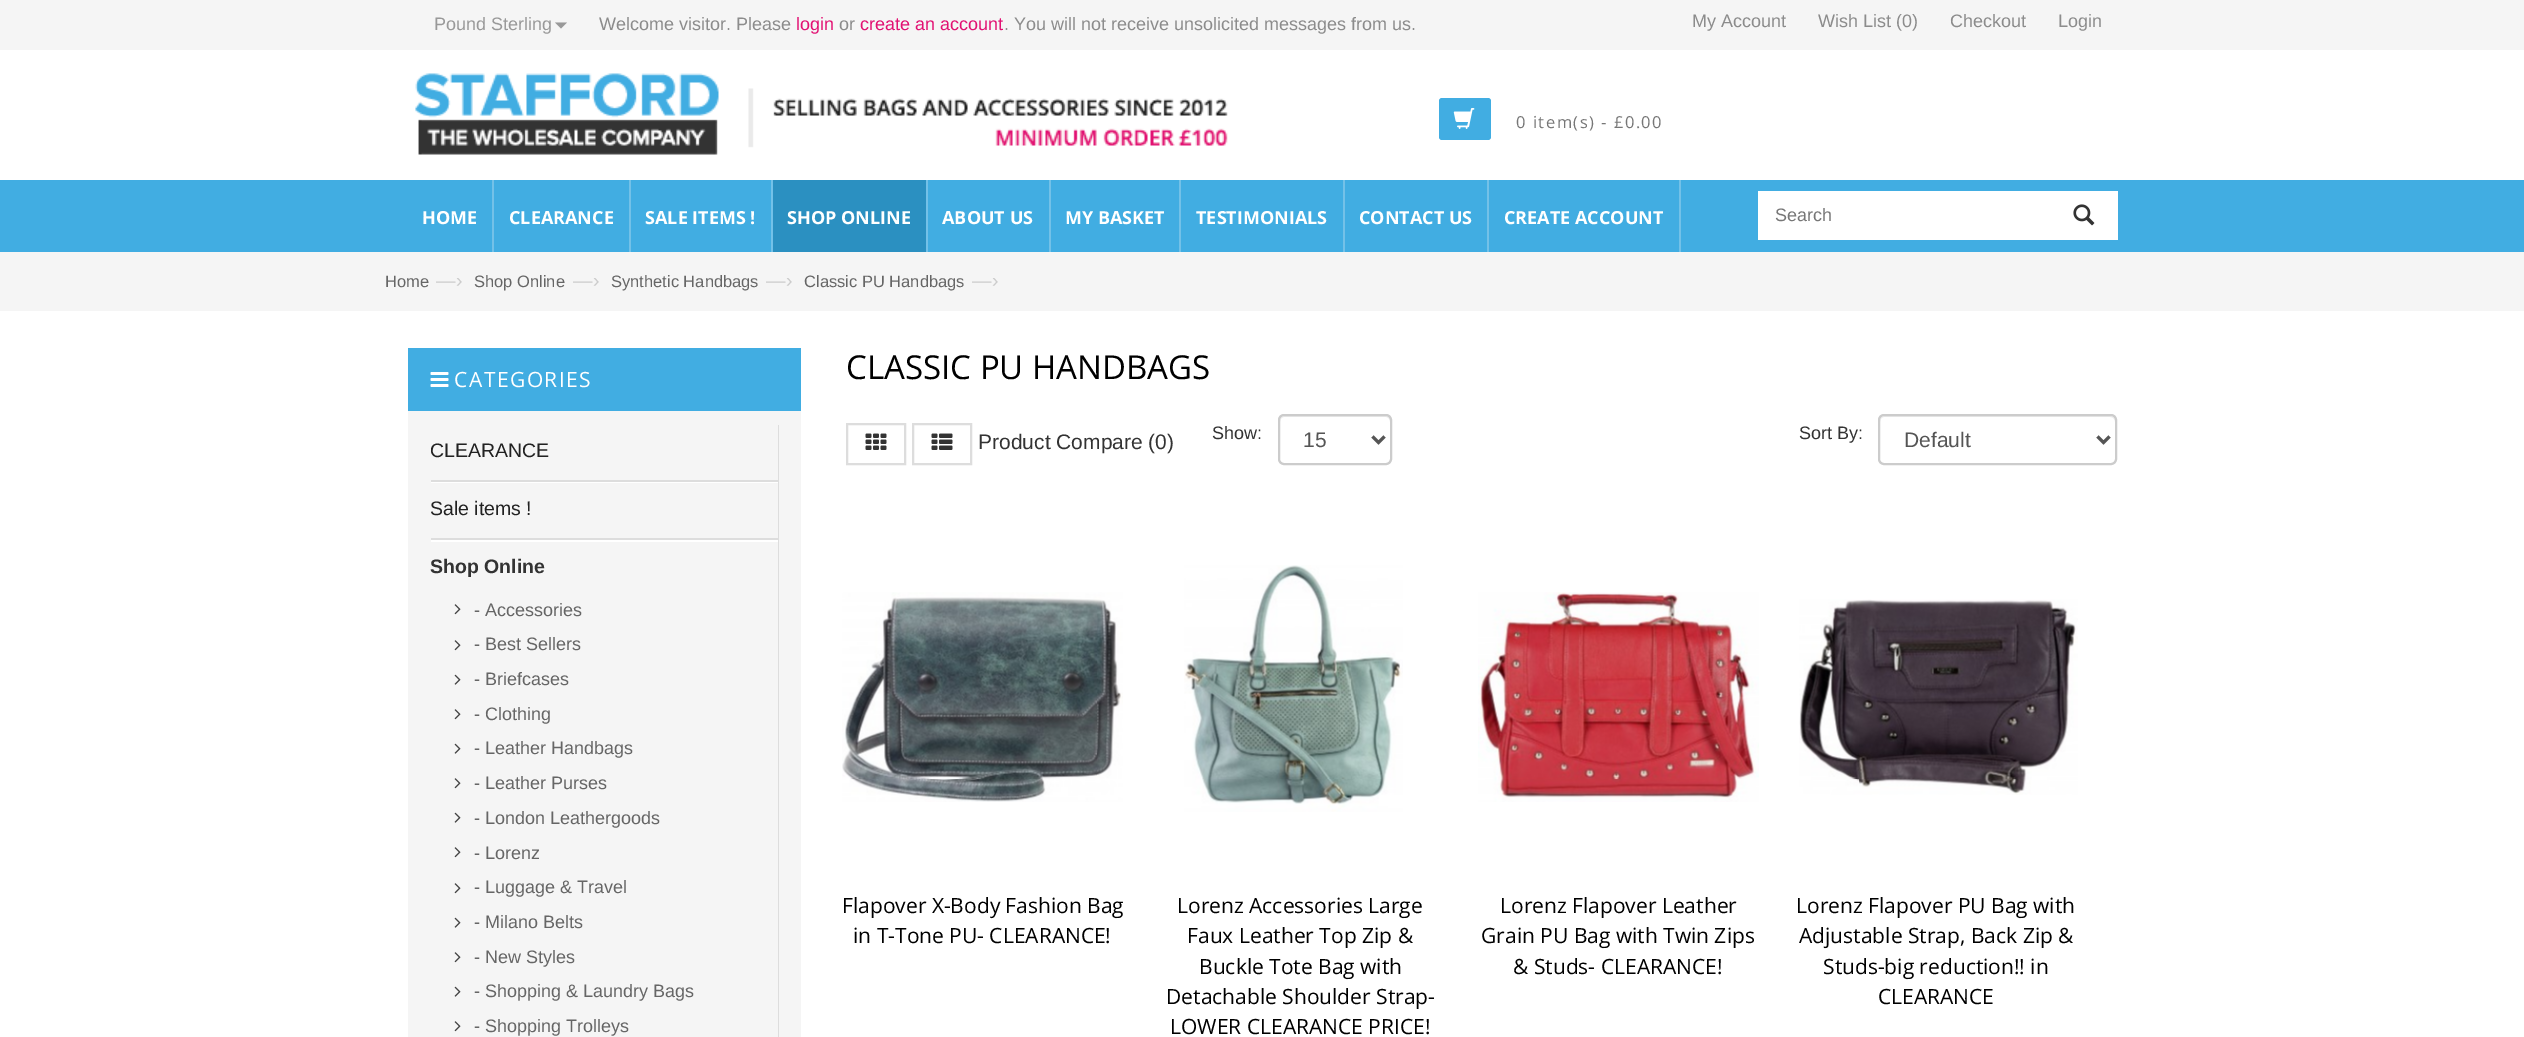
%!PS
<< /PageSize [2524 1037] >> setpagedevice
/rgb { 3 { 255 div 3 1 roll } repeat setrgbcolor } def
/font { [ exch dup neg 0 0 3 -1 roll 0 0 ] selectfont } def
/roundrect { 5 dict begin { /r /h /w /y /x } { exch def } forall
  x r add y moveto x w add y 2 copy h add r arct x w add y h add x 1 index r arct
  x y h add x y r arct x y 2 copy exch w add exch r arct closepath end } def
/picture { 5 dict begin { /h /w /y /x /name } { exch def } forall
  gsave x y translate w h scale
  w h 8 [w 0 0 h 0 0] name (r) file false 3 colorimage grestore end } def
0 1037 translate 1 -1 scale
4 setmiterlimit
255 255 255 rgb
0 0 2524 1037 rectfill
245 245 245 rgb
0 0 2524 50 rectfill
153 153 153 rgb
555 22.5 moveto 567 22.5 lineto 561 28.5 lineto closepath fill
(img/1.rgb) 415 73 813 82 picture
65 173 226 rgb
1439 98 52 42 3 roundrect fill
(img/2.rgb) 1453 108 22 21 picture
[
  [0 180 2524 72 65 173 226]
  [492 180 2 72 115 193 232]
  [629 180 2 72 115 193 232]
  [771 180 2 72 115 193 232]
  [773 180 153 72 43 144 193]
  [926 180 2 72 115 193 232]
  [1049 180 2 72 115 193 232]
  [1179 180 2 72 115 193 232]
  [1343 180 2 72 115 193 232]
  [1487 180 2 72 115 193 232]
  [1679 180 2 72 115 193 232]
  [1758 191 360 49 255 255 255]
] { aload pop rgb rectfill } forall
(img/3.rgb) 2073 204 22 22 picture
[
  [0 252 2524 59 245 245 245]
  [408 411 393 626 245 245 245]
  [408 348 393 63 65 173 226]
] { aload pop rgb rectfill } forall
(img/4.rgb) 430 372 19 15 picture
255 255 255 rgb
431 480 moveto 431 483 lineto 779 483 lineto 779 426 lineto 778 426 lineto 778 480 lineto closepath fill
221 221 221 rgb
431 480 moveto 431 482 lineto 779 482 lineto 779 425 lineto 778 425 lineto 778 480 lineto closepath fill
255 255 255 rgb
431 538 moveto 431 542 lineto 779 542 lineto 779 483 lineto 778 483 lineto 778 538 lineto closepath fill
221 221 221 rgb
431 538 moveto 431 540 lineto 779 540 lineto 779 482 lineto 778 482 lineto 778 538 lineto closepath fill
431 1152 moveto 431 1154 lineto 779 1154 lineto 779 540 lineto 778 540 lineto 778 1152 lineto closepath fill
(img/5.rgb) 454 604 7 11 picture
(img/5.rgb) 454 640 7 11 picture
(img/6.rgb) 454 674 7 11 picture
(img/5.rgb) 454 709 7 11 picture
(img/6.rgb) 454 743 7 11 picture
(img/5.rgb) 454 778 7 11 picture
(img/6.rgb) 454 812 7 11 picture
(img/5.rgb) 454 847 7 11 picture
(img/5.rgb) 454 883 7 11 picture
(img/6.rgb) 454 917 7 11 picture
(img/5.rgb) 454 952 7 11 picture
(img/6.rgb) 454 986 7 11 picture
(img/5.rgb) 454 1021 7 11 picture
2 setlinewidth
847 424 58 40 rectstroke
(img/7.rgb) 865 433 22 17 picture
913 424 58 40 rectstroke
(img/8.rgb) 931 433 22 17 picture
236 236 236 rgb
1284 417 moveto 1386 417 lineto 1388 417 1390 419 1390 422 curveto 1390 460 lineto 1389 463 lineto 1390 462 1391 460 1391 459 curveto 1391 421 lineto 1391 418 1389 416 1386 416 curveto 1285 416 lineto 1282 416 1280 418 1280 421 curveto 1280 422 lineto 1280 419 1282 417 1284 417 curveto closepath fill
204 204 204 rgb
1279 415 112 49 5 roundrect stroke
85 85 85 rgb
3 setlinewidth
1372.5 436.5 moveto 1378.5 442.5 lineto 1384.5 436.5 lineto stroke
236 236 236 rgb
1884 417 moveto 2110 417 lineto 2113 417 2115 419 2115 422 curveto 2115 421 lineto 2115 418 2113 416 2110 416 curveto 1885 416 lineto 1882 416 1880 418 1880 421 curveto 1880 422 lineto 1880 419 1882 417 1884 417 curveto closepath fill
204 204 204 rgb
2 setlinewidth
1879 415 237 49 5 roundrect stroke
85 85 85 rgb
3 setlinewidth
2097.5 436.5 moveto 2103.5 442.5 lineto 2109.5 436.5 lineto stroke
(img/9.rgb) 842 592 281 210 picture
(img/10.rgb) 1184 565 219 247 picture
(img/11.rgb) 1478 592 281 210 picture
(img/12.rgb) 1799 599 279 196 picture
/LiberationSans-Regular 18 font
153 153 153 rgb
434 30 moveto (Pound Sterling) show
140 140 140 rgb
599 30 moveto (Welcome visitor. Please) show
226 17 115 rgb
796 30 moveto (login) show
140 140 140 rgb
839 30 moveto (or) show
226 17 115 rgb
860 30 moveto (create an account) show
140 140 140 rgb
[
  [(. You will not receive unsolicited messages from us.) 1004 30]
  [(My Account) 1692 27]
  [(Wish List \(0\)) 1818 27]
  [(Checkout) 1950 27]
  [(Login) 2058 27]
] { aload pop moveto show } forall
/OpenSans-Regular 16.5 font
119 119 119 rgb
1516 128 moveto 1.5 0 (0 item\(s\) - £0.00) ashow
/OpenSans-Bold 18 font
255 255 255 rgb
[
  [(HOME) 422 224]
  [(CLEARANCE) 509 224]
  [(SALE ITEMS !) 645 224]
  [(SHOP ONLINE) 787 224]
  [(ABOUT US) 942 224]
  [(MY BASKET) 1065 224]
  [(TESTIMONIALS) 1196 224]
  [(CONTACT US) 1359 224]
  [(CREATE ACCOUNT) 1504 224]
] { aload pop moveto show } forall
/LiberationSans-Regular 18 font
119 119 119 rgb
1775 221 moveto (Search) show
/LiberationSans-Regular 16.5 font
102 102 102 rgb
385 287 moveto (Home) show
/LiberationSans-Regular 19.5 font
204 204 204 rgb
436 287 moveto (—›) show
/LiberationSans-Regular 16.5 font
102 102 102 rgb
474 287 moveto (Shop Online) show
/LiberationSans-Regular 19.5 font
204 204 204 rgb
573 287 moveto (—›) show
/LiberationSans-Regular 16.5 font
102 102 102 rgb
611 287 moveto (Synthetic Handbags) show
/LiberationSans-Regular 19.5 font
204 204 204 rgb
766 287 moveto (—›) show
/LiberationSans-Regular 16.5 font
102 102 102 rgb
804 287 moveto (Classic PU Handbags) show
/LiberationSans-Regular 19.5 font
204 204 204 rgb
972 287 moveto (—›) show
/OpenSans-Regular 21 font
255 255 255 rgb
454 387 moveto 1.5 0 (CATEGORIES) ashow
/LiberationSans-Regular 19.5 font
34 34 34 rgb
430 457 moveto (CLEARANCE) show
430 515 moveto (Sale items !) show
/LiberationSans-Bold 19.5 font
51 51 51 rgb
430 573 moveto (Shop Online) show
/LiberationSans-Regular 18 font
102 102 102 rgb
[
  [(- Accessories) 474 616]
  [(- Best Sellers) 474 650]
  [(- Briefcases) 474 685]
  [(- Clothing) 474 720]
  [(- Leather Handbags) 474 754]
  [(- Leather Purses) 474 789]
  [(- London Leathergoods) 474 824]
  [(- Lorenz) 474 859]
  [(- Luggage & Travel) 474 893]
  [(- Milano Belts) 474 928]
  [(- New Styles) 474 963]
  [(- Shopping & Laundry Bags) 474 997]
  [(- Shopping Trolleys) 474 1032]
] { aload pop moveto show } forall
/OpenSans-Regular 33 font
0 0 0 rgb
846 379 moveto (CLASSIC PU HANDBAGS) show
/LiberationSans-Regular 21 font
51 51 51 rgb
978 449 moveto (Product Compare \(0\)) show
/LiberationSans-Regular 18 font
1212 439 moveto (Show:) show
/LiberationSans-Regular 21 font
85 85 85 rgb
1303 447 moveto (15) show
/LiberationSans-Regular 18 font
51 51 51 rgb
1799 439 moveto (Sort By:) show
/LiberationSans-Regular 21 font
85 85 85 rgb
1904 447 moveto (Default) show
/OpenSans-Regular 21 font
0 0 0 rgb
[
  [(Flapover X-Body Fashion Bag) 842 913]
  [(in T-Tone PU- CLEARANCE!) 853 943]
  [(Lorenz Accessories Large) 1177 913]
  [(Faux Leather Top Zip &) 1187 943]
  [(Buckle Tote Bag with) 1199 974]
  [(Detachable Shoulder Strap-) 1166 1004]
  [(LOWER CLEARANCE PRICE!) 1170 1034]
  [(Lorenz Flapover Leather) 1500 913]
  [(Grain PU Bag with Twin Zips) 1481 943]
  [(& Studs- CLEARANCE!) 1513 974]
  [(Lorenz Flapover PU Bag with) 1796 913]
  [(Adjustable Strap, Back Zip &) 1799 943]
  [(Studs-big reduction!! in) 1823 974]
  [(CLEARANCE) 1878 1004]
] { aload pop moveto show } forall
showpage
